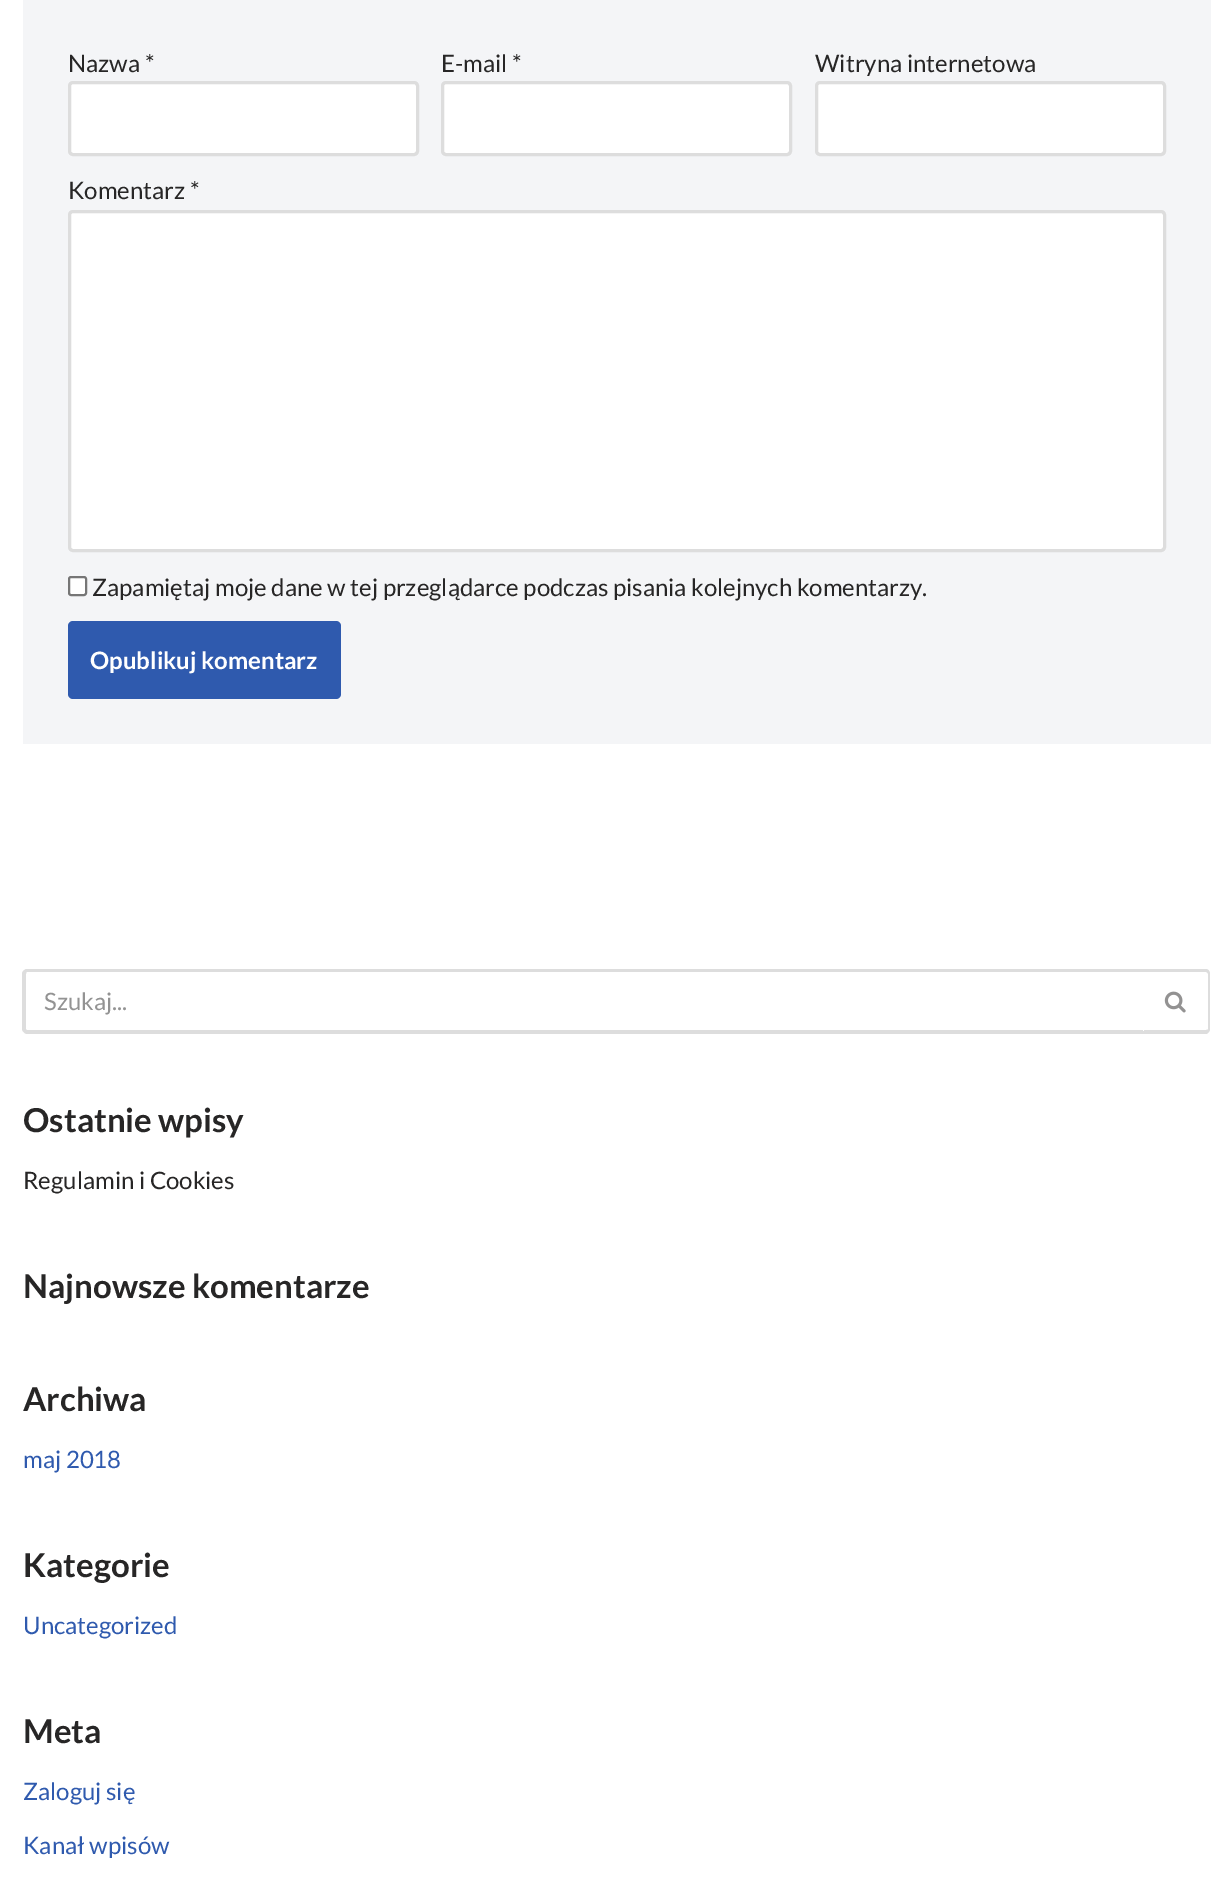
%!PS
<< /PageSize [1232 1896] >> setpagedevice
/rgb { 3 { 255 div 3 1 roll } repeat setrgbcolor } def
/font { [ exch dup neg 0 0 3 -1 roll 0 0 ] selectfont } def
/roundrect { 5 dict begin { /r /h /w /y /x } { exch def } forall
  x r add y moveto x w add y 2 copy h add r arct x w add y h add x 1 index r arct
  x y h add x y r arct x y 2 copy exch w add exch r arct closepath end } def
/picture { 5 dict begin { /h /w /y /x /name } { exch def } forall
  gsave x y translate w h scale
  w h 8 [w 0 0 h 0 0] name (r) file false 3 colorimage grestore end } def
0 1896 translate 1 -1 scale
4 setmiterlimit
255 255 255 rgb
0 0 1232 1896 rectfill
244 245 247 rgb
23 0 1188 744 rectfill
255 255 255 rgb
69.5 82.5 348 72 3.5 roundrect gsave fill grestore
221 221 221 rgb
3 setlinewidth
stroke
255 255 255 rgb
442.5 82.5 348 72 3.5 roundrect gsave fill grestore
221 221 221 rgb
stroke
255 255 255 rgb
816.5 82.5 348 72 3.5 roundrect gsave fill grestore
221 221 221 rgb
stroke
255 255 255 rgb
69.5 211.5 1095 339 3.5 roundrect gsave fill grestore
221 221 221 rgb
stroke
255 255 255 rgb
69 577 17 18 2 roundrect gsave fill grestore
118 118 118 rgb
2 setlinewidth
stroke
47 90 174 rgb
68 621 273 78 5 roundrect fill
221 221 221 rgb
27 969 moveto 1143 969 lineto 1143 1034 lineto 27 1034 lineto 25 1034 22 1031 22 1029 curveto 22 974 lineto 22 971 25 969 27 969 curveto closepath 27 972 moveto 1143 972 lineto 1143 1030 lineto 27 1030 lineto 26 1030 26 1030 26 1029 curveto 26 974 lineto 26 973 26 972 27 972 curveto closepath eofill
1143 969 moveto 1206 969 lineto 1208 969 1210 971 1210 974 curveto 1210 1029 lineto 1210 1031 1208 1034 1206 1034 curveto 1143 1034 lineto closepath 1143 972 moveto 1206 972 lineto 1207 972 1208 973 1208 974 curveto 1208 1029 lineto 1208 1030 1207 1030 1206 1030 curveto 1143 1030 lineto closepath eofill
(img/1.rgb) 1164 991 22 22 picture
255 255 255 rgb
1143 1030 1 1 rectfill
/Lato-Regular 24 font
39 38 38 rgb
[
  [(Nazwa *) 68 72]
  [(E-mail *) 441 72]
  [(Witryna internetowa) 815 72]
  [(Komentarz *) 68 199]
  [(Zapamiętaj moje dane w tej przeglądarce podczas pisania kolejnych komentarzy.) 92 596]
] { aload pop moveto show } forall
/Lato-Bold 24 font
255 255 255 rgb
90 669 moveto (Opublikuj komentarz) show
/Lato-Regular 24 font
147 147 147 rgb
44 1010 moveto (Szukaj...) show
/Lato-Bold 33 font
39 38 38 rgb
23 1132 moveto (Ostatnie wpisy) show
/Lato-Regular 24 font
23 1189 moveto (Regulamin i Cookies) show
/Lato-Bold 33 font
23 1298 moveto (Najnowsze komentarze) show
23 1411 moveto (Archiwa) show
/Lato-Regular 24 font
47 90 174 rgb
23 1468 moveto (maj 2018) show
/Lato-Bold 33 font
39 38 38 rgb
23 1577 moveto (Kategorie) show
/Lato-Regular 24 font
47 90 174 rgb
23 1634 moveto (Uncategorized) show
/Lato-Bold 33 font
39 38 38 rgb
23 1743 moveto (Meta) show
/Lato-Regular 24 font
47 90 174 rgb
23 1800 moveto (Zaloguj się) show
23 1854 moveto (Kanał wpisów) show
showpage
